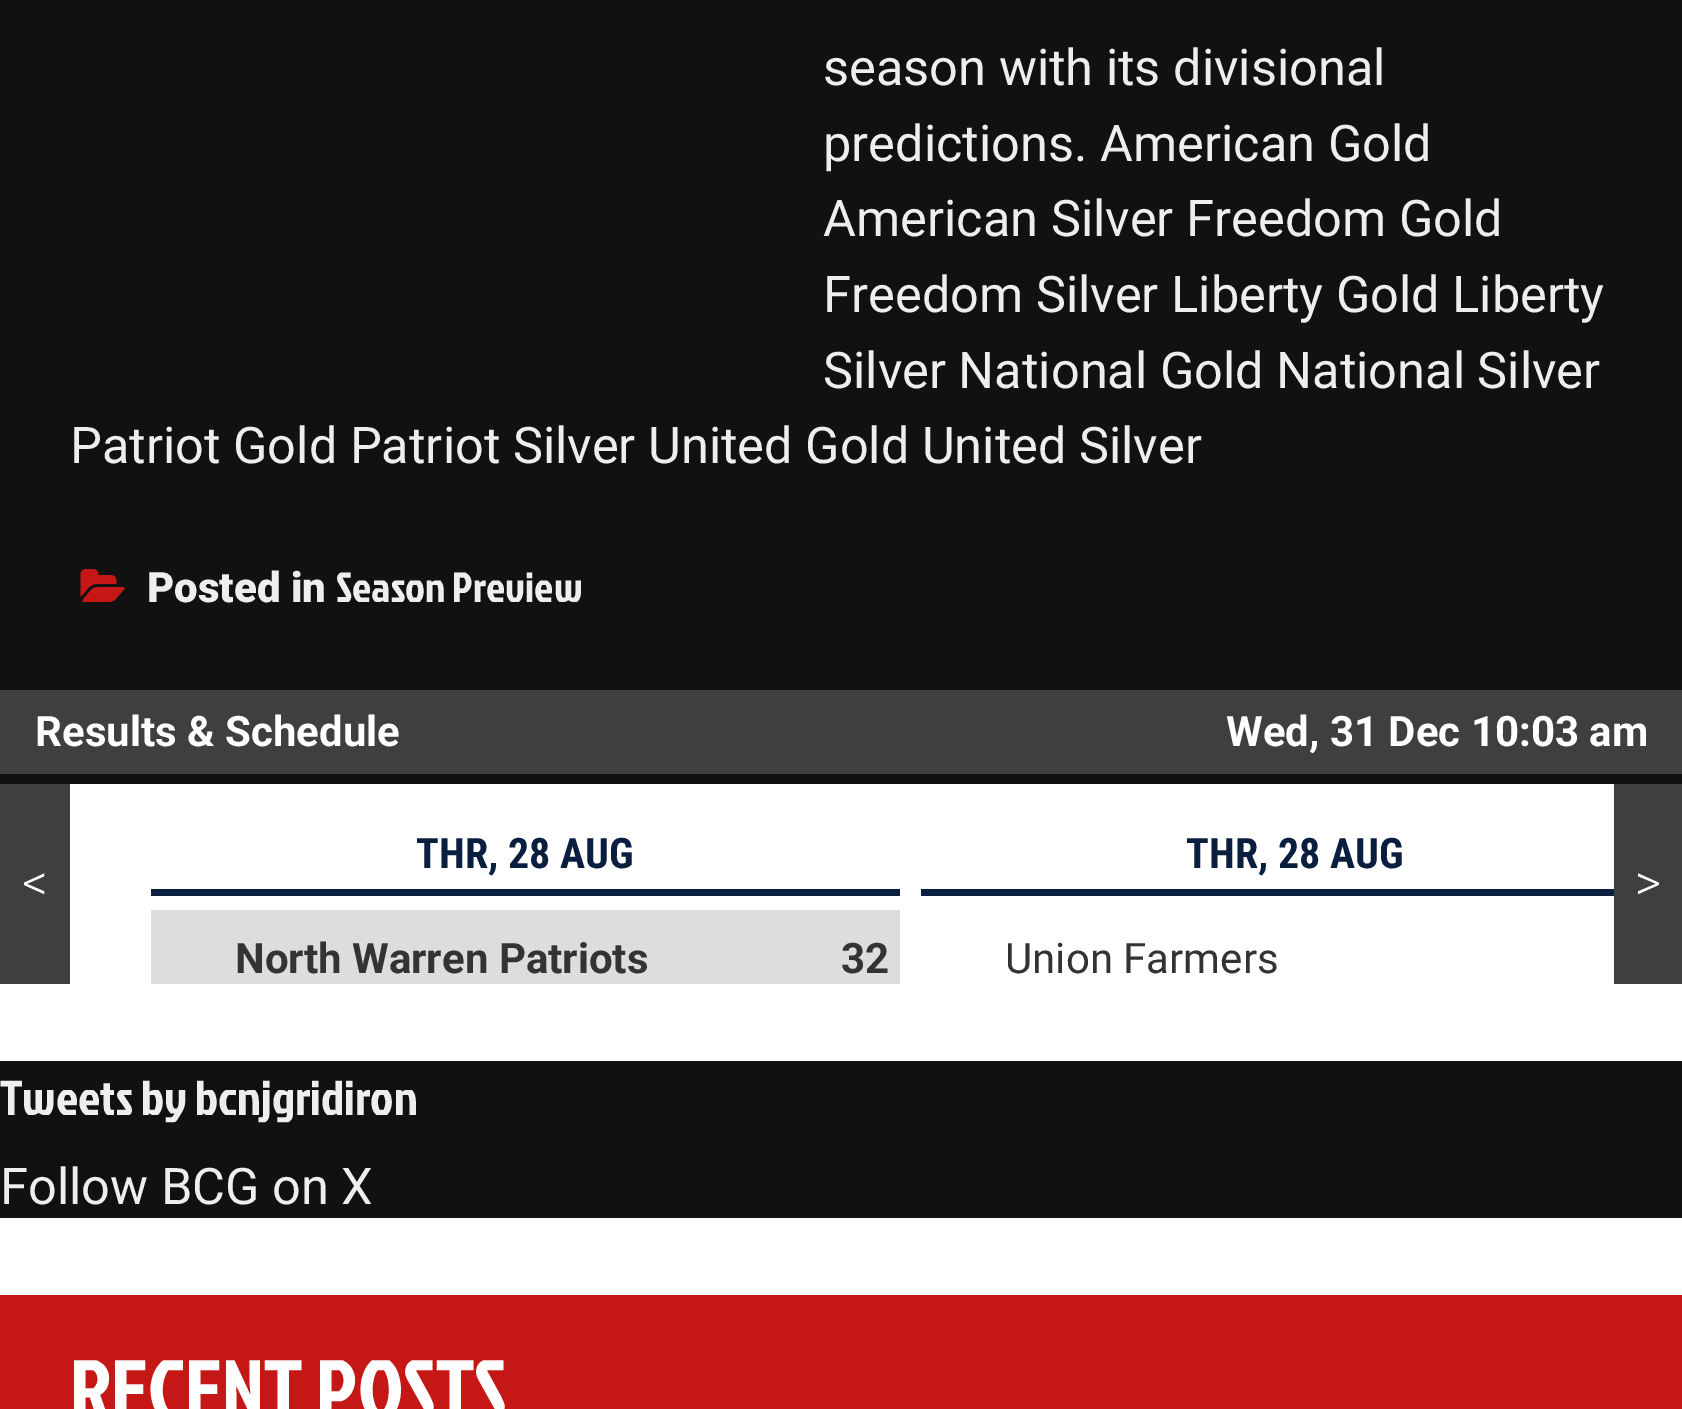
%!PS
<< /PageSize [1682 1409] >> setpagedevice
/rgb { 3 { 255 div 3 1 roll } repeat setrgbcolor } def
/font { [ exch dup neg 0 0 3 -1 roll 0 0 ] selectfont } def
/picture { 5 dict begin { /h /w /y /x /name } { exch def } forall
  gsave x y translate w h scale
  w h 8 [w 0 0 h 0 0] name (r) file false 3 colorimage grestore end } def
0 1409 translate 1 -1 scale
4 setmiterlimit
255 255 255 rgb
0 0 1682 1409 rectfill
17 17 17 rgb
0 0 1682 690 rectfill
(img/1.rgb) 80 569 45 33 picture
[
  [0 774 1682 10 17 17 17]
  [0 690 1682 84 63 63 63]
  [0 784 70 200 63 63 63]
  [151 889 749 7 10 30 63]
  [151 910 749 74 221 221 221]
  [921 889 693 7 10 30 63]
  [1614 784 68 200 63 63 63]
  [0 1061 1682 157 17 17 17]
  [0 1295 1682 114 198 23 23]
] { aload pop rgb rectfill } forall
/Roboto-Regular 50.5 font
238 238 238 rgb
[
  [(season with its divisional) 823 85]
  [(predictions. American Gold) 823 161]
  [(American Silver Freedom Gold) 823 236]
  [(Freedom Silver Liberty Gold Liberty) 823 312]
  [(Silver National Gold National Silver) 823 388]
  [(Patriot Gold Patriot Silver United Gold United Silver) 70 463]
] { aload pop moveto show } forall
/Roboto-Black 42 font
147 602 moveto (Posted in) show
/JockeyOne-Regular 42 font
336 602 moveto (Season Preview) show
/Roboto-Bold 42 font
255 255 255 rgb
35 746 moveto (Results & Schedule) show
1226 746 moveto (Wed, 31 Dec 10:03 am) show
/Roboto-Light 50.5 font
22 900 moveto (<) show
/RobotoCondensed-Bold 42 font
10 30 63 rgb
416 868 moveto (THR, 28 AUG) show
/Roboto-Bold 42 font
51 51 51 rgb
235 973 moveto (North Warren Patriots) show
841 973 moveto (32) show
/RobotoCondensed-Bold 42 font
10 30 63 rgb
1186 868 moveto (THR, 28 AUG) show
/Roboto-Regular 42 font
51 51 51 rgb
1005 973 moveto (Union Farmers) show
/Roboto-Light 50.5 font
255 255 255 rgb
1635 900 moveto (>) show
/JockeyOne-Regular 49 font
238 238 238 rgb
0 1115 moveto (Tweets by bcnjgridiron) show
/Roboto-Regular 50.5 font
0 1204 moveto (Follow BCG on X) show
/JockeyOne-Regular 84 font
255 255 255 rgb
70 1419 moveto (RECENT POSTS) show
showpage
